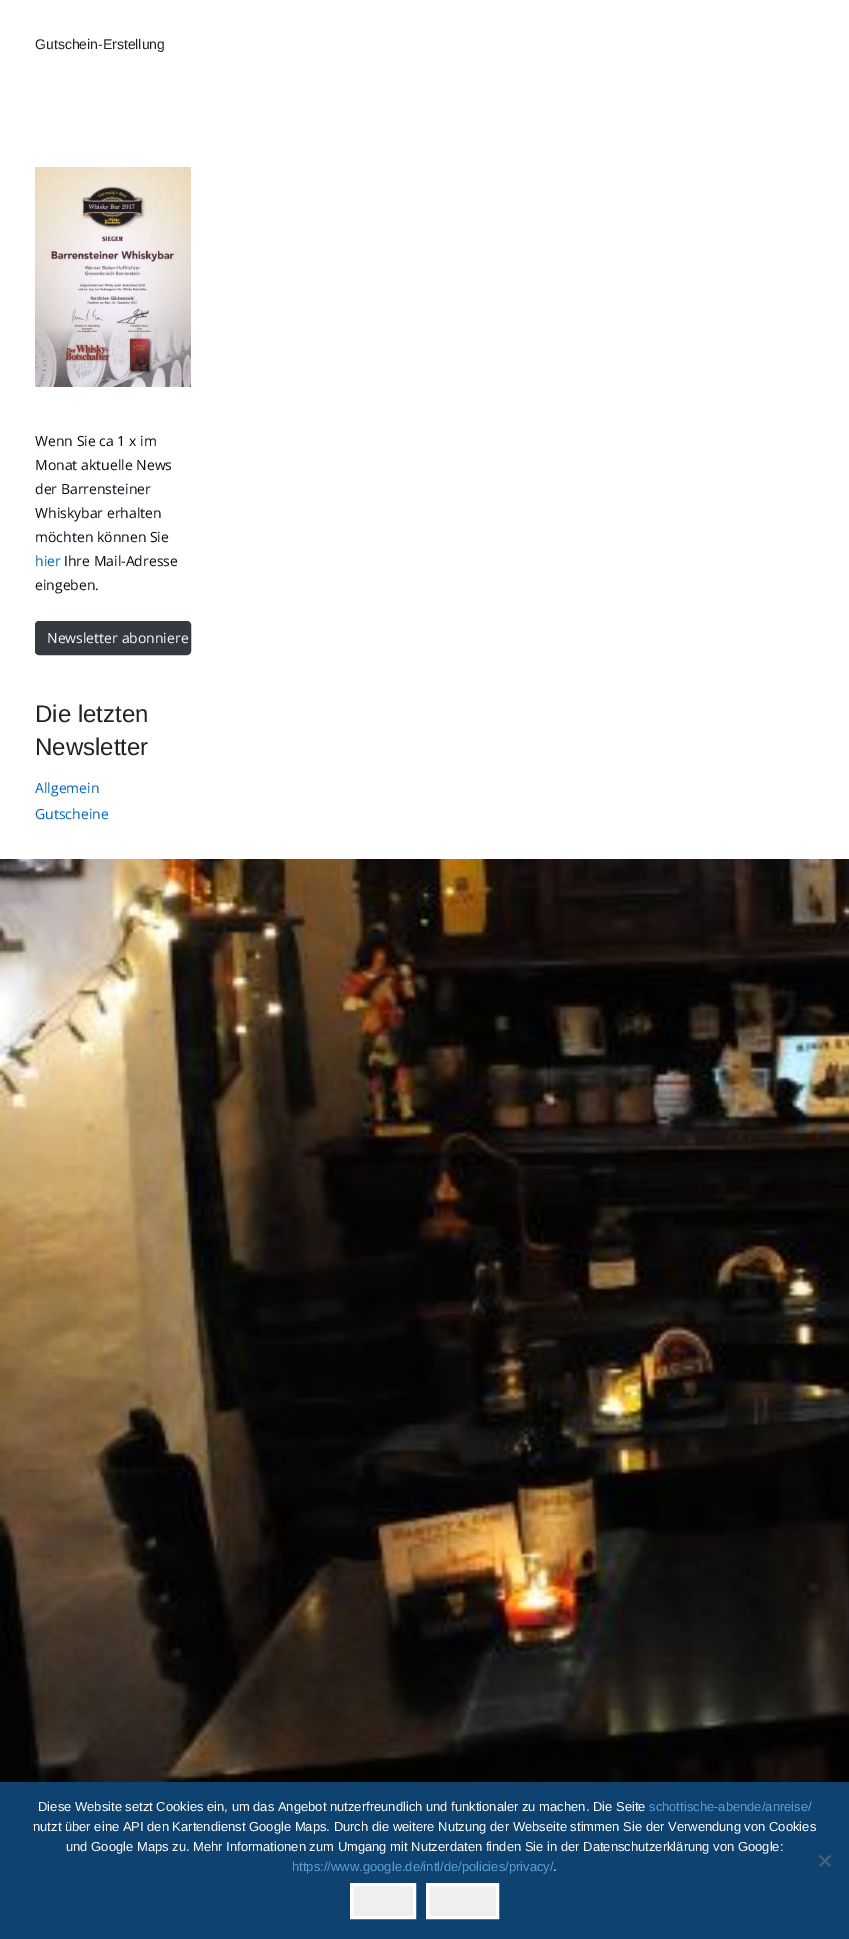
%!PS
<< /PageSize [849 1939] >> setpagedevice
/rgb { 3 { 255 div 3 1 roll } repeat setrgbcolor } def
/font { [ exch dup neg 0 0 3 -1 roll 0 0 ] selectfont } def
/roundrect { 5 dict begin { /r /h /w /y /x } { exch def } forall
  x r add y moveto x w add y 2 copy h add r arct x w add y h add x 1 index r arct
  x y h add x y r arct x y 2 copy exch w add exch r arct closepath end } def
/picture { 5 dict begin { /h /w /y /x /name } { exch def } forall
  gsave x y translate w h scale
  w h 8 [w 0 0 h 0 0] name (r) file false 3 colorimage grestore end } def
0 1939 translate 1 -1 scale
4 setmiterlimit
255 255 255 rgb
0 0 849 1939 rectfill
(img/1.rgb) 0 859 849 923 picture
(img/2.rgb) 35 167 156 220 picture
52 58 64 rgb
35.5 621.5 155 33 3.5 roundrect gsave fill grestore
stroke
14 67 113 rgb
0 1782 849 157 rectfill
71 98 121 rgb
829.5 1855 moveto 831 1856 lineto 820.5 1867 lineto 819 1865.5 lineto closepath fill
819 1856 moveto 820.5 1855 lineto 831 1865.5 lineto 829.5 1867 lineto closepath fill
239 239 239 rgb
351.5 1884.5 moveto 414.5 1884.5 lineto 414.5 1917.5 lineto 351.5 1917.5 lineto closepath gsave fill grestore
255 255 255 rgb
3 setlinewidth
stroke
239 239 239 rgb
427.5 1884.5 moveto 497.5 1884.5 lineto 497.5 1917.5 lineto 427.5 1917.5 lineto closepath gsave fill grestore
255 255 255 rgb
stroke
/LiberationSans-Regular 14 font
34 34 34 rgb
35 49 moveto (Gutschein-Erstellung) show
/OpenSans-Regular 14 font
3 14 24 rgb
[
  [(Wenn Sie ca 1 x im) 35 446]
  [(Monat aktuelle News) 35 470]
  [(der Barrensteiner) 35 494]
  [(Whiskybar erhalten) 35 518]
  [(möchten können Sie) 35 542]
] { aload pop moveto show } forall
0 101 189 rgb
35 566 moveto (hier) show
3 14 24 rgb
64 566 moveto (Ihre Mail-Adresse) show
35 590 moveto (eingeben.) show
255 255 255 rgb
47 643 moveto (Newsletter abonniere) show
/LiberationSans-Regular 24 font
34 34 34 rgb
35 722 moveto (Die letzten) show
35 755 moveto (Newsletter) show
/OpenSans-Regular 14 font
0 101 189 rgb
35 793 moveto (Allgemein) show
35 819 moveto (Gutscheine) show
/LiberationSans-Regular 13 font
255 255 255 rgb
38 1811 moveto (Diese Website setzt Cookies ein, um das Angebot nutzerfreundlich und funktionaler zu machen. Die Seite) show
94 157 212 rgb
649 1811 moveto (schottische-abende/anreise/) show
255 255 255 rgb
33 1831 moveto (nutzt über eine API den Kartendienst Google Maps. Durch die weitere Nutzung der Webseite stimmen Sie der Verwendung von Cookies) show
66 1851 moveto (und Google Maps zu. Mehr Informationen zum Umgang mit Nutzerdaten finden Sie in der Datenschutzerklärung von Google:) show
94 157 212 rgb
292 1871 moveto (https://www.google.de/intl/de/policies/privacy/) show
255 255 255 rgb
553 1871 moveto (.) show
showpage
